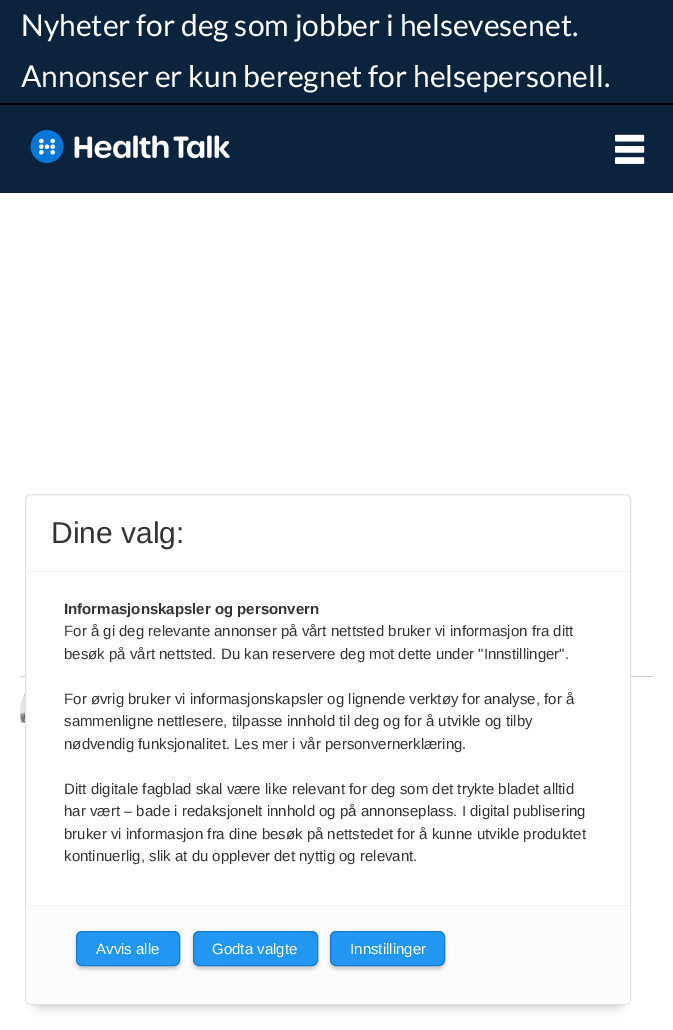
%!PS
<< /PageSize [673 1030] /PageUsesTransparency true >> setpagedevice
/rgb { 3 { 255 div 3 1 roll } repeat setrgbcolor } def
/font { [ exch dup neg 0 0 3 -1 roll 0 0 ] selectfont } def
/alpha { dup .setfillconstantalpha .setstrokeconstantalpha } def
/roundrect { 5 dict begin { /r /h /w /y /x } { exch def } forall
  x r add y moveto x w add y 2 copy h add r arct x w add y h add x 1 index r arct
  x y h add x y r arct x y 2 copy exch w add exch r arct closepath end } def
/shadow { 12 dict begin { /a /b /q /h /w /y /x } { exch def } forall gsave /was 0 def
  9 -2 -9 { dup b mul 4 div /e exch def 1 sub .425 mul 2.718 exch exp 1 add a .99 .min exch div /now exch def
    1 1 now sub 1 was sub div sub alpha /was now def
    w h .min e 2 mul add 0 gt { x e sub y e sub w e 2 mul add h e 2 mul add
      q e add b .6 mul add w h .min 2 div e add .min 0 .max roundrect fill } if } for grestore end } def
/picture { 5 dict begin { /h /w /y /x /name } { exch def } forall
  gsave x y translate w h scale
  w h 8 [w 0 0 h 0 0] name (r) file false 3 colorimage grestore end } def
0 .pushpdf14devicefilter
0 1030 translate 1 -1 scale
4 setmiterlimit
255 255 255 rgb
0 0 673 1030 rectfill
[
  [0 0 673 103 12 35 62]
  [0 103 673 2 0 0 0]
  [0 105 673 88 12 35 62]
] { aload pop rgb rectfill } forall
(img/1.rgb) 30 130 200 33 picture
(img/2.rgb) 615 134 30 30 picture
206 206 206 rgb
20 676 634 1 rectfill
(img/3.rgb) 20 693 5 30 picture
0 0 0 rgb
38 519 581 486 0 6 0.3 shadow
255 255 255 rgb
25.5 494.5 605 510 5.5 roundrect gsave fill grestore
226 226 226 rgb
stroke
242 242 242 rgb
26 571 604 1 rectfill
252 252 252 rgb
26 905 moveto 630 905 lineto 630 999 lineto 630 1002 628 1004 625 1004 curveto 31 1004 lineto 28 1004 26 1002 26 999 curveto closepath fill
242 242 242 rgb
26 905 604 1 rectfill
0 0 0 rgb
76 934 104 35 6 2 0.2 shadow
33 150 243 rgb
76.5 931.5 103 34 5.5 roundrect gsave fill grestore
21 123 206 rgb
stroke
0 0 0 rgb
193 934 125 35 6 2 0.2 shadow
33 150 243 rgb
193.5 931.5 124 34 5.5 roundrect gsave fill grestore
21 123 206 rgb
stroke
0 0 0 rgb
330 934 115 35 6 2 0.2 shadow
33 150 243 rgb
330.5 931.5 114 34 5.5 roundrect gsave fill grestore
21 123 206 rgb
stroke
/Lato-Regular 30 font
255 255 255 rgb
21 36 moveto (Nyheter for deg som jobber i helsevesenet.) show
21 87 moveto (Annonser er kun beregnet for helsepersonell.) show
/LiberationSans-Regular 30 font
51 51 51 rgb
51 543 moveto (Dine valg:) show
/LiberationSans-Bold 15 font
64 614 moveto (Informasjonskapsler og personvern) show
/LiberationSans-Regular 15 font
[
  [(For å gi deg relevante annonser på vårt nettsted bruker vi informasjon fra ditt) 64 636]
  [(besøk på vårt nettsted. Du kan reservere deg mot dette under "Innstillinger".) 64 659]
  [(For øvrig bruker vi informasjonskapsler og lignende verktøy for analyse, for å) 64 704]
  [(sammenligne nettlesere, tilpasse innhold til deg og for å utvikle og tilby) 64 726]
  [(nødvendig funksjonalitet. Les mer i vår personvernerklæring.) 64 749]
  [(Ditt digitale fagblad skal være like relevant for deg som det trykte bladet alltid) 64 794]
  [(har vært – bade i redaksjonelt innhold og på annonseplass. I digital publisering) 64 816]
  [(bruker vi informasjon fra dine besøk på nettstedet for å kunne utvikle produktet) 64 839]
  [(kontinuerlig, slik at du opplever det nyttig og relevant.) 64 861]
] { aload pop moveto show } forall
255 255 255 rgb
[
  [(Avvis alle) 96 954]
  [(Godta valgte) 212 954]
  [(Innstillinger) 350 954]
] { aload pop moveto show } forall
.poppdf14devicefilter showpage
